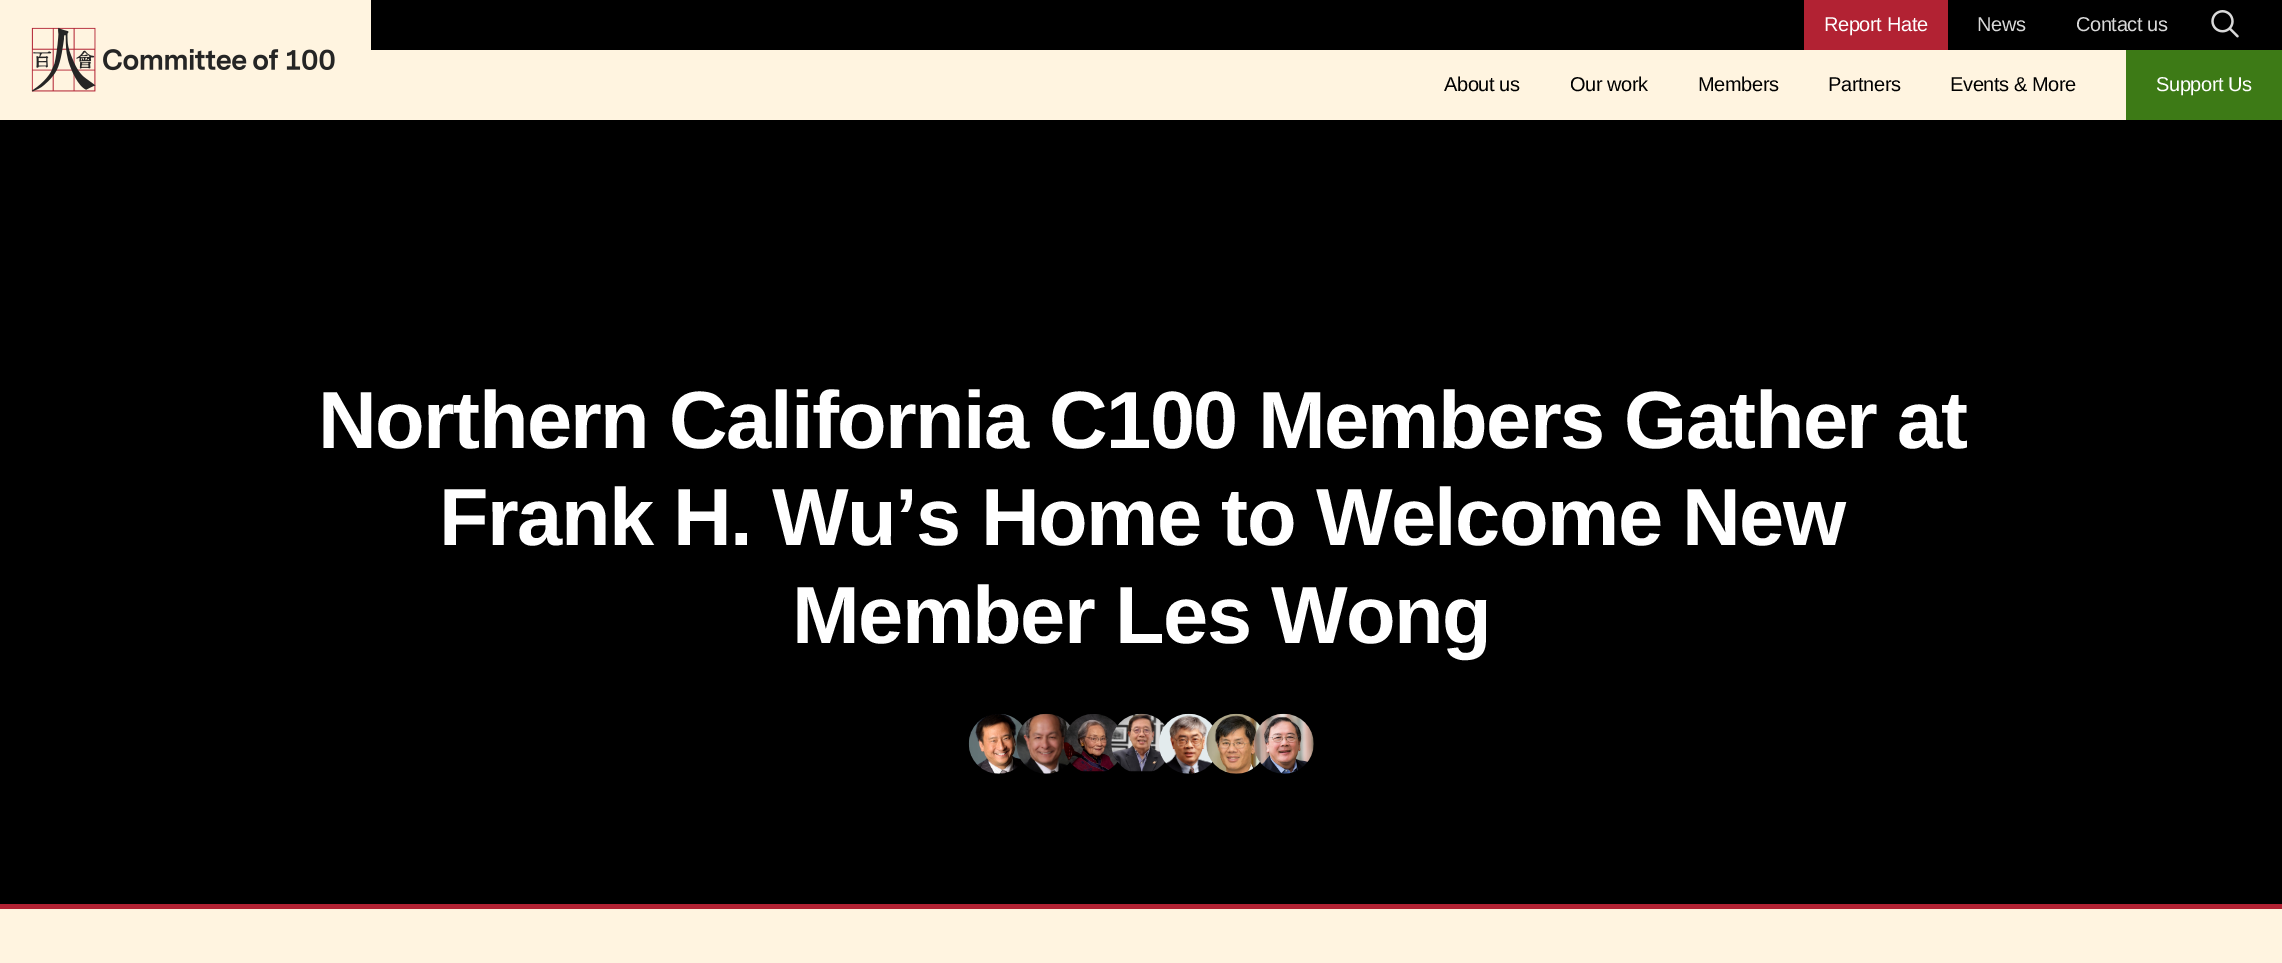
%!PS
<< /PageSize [2282 963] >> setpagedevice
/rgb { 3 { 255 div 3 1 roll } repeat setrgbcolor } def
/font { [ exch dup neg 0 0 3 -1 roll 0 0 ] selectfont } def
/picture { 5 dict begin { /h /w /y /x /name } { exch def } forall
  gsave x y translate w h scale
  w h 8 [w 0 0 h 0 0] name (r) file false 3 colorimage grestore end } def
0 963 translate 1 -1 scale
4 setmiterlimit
255 244 224 rgb
0 0 2282 963 rectfill
(img/1.rgb) 31 27 304 65 picture
0 0 0 rgb
371 0 1911 50 rectfill
178 34 51 rgb
1804 0 144 50 rectfill
(img/2.rgb) 2211 10 28 28 picture
61 122 22 rgb
2126 50 156 70 rectfill
0 0 0 rgb
0 120 2282 784 rectfill
(img/3.rgb) 968 714 55 60 picture
(img/4.rgb) 1016 713 55 61 picture
(img/5.rgb) 1064 714 54 58 picture
(img/6.rgb) 1111 713 55 59 picture
(img/7.rgb) 1159 713 54 61 picture
(img/8.rgb) 1206 713 55 61 picture
(img/9.rgb) 1254 713 60 61 picture
178 34 51 rgb
0 904 2282 5 rectfill
/LiberationSans-Regular 20 font
255 255 255 rgb
1824 31 moveto -0.4 0 (Report Hate) ashow
217 217 217 rgb
1977 31 moveto -0.4 0 (News) ashow
2076 31 moveto -0.4 0 (Contact us) ashow
0 0 0 rgb
1444 91 moveto -0.4 0 (About us) ashow
1570 91 moveto -0.4 0 (Our work) ashow
1698 91 moveto -0.4 0 (Members) ashow
1828 91 moveto -0.4 0 (Partners) ashow
1950 91 moveto -0.4 0 (Events & More) ashow
255 255 255 rgb
2156 91 moveto -0.4 0 (Support Us) ashow
/LiberationSans-Bold 81.25 font
318 448 moveto -1.6 0 (Northern California C100 Members Gather at) ashow
439 545 moveto -1.6 0 (Frank H. Wu’s Home to Welcome New) ashow
792 643 moveto -1.6 0 (Member Les Wong) ashow
showpage
